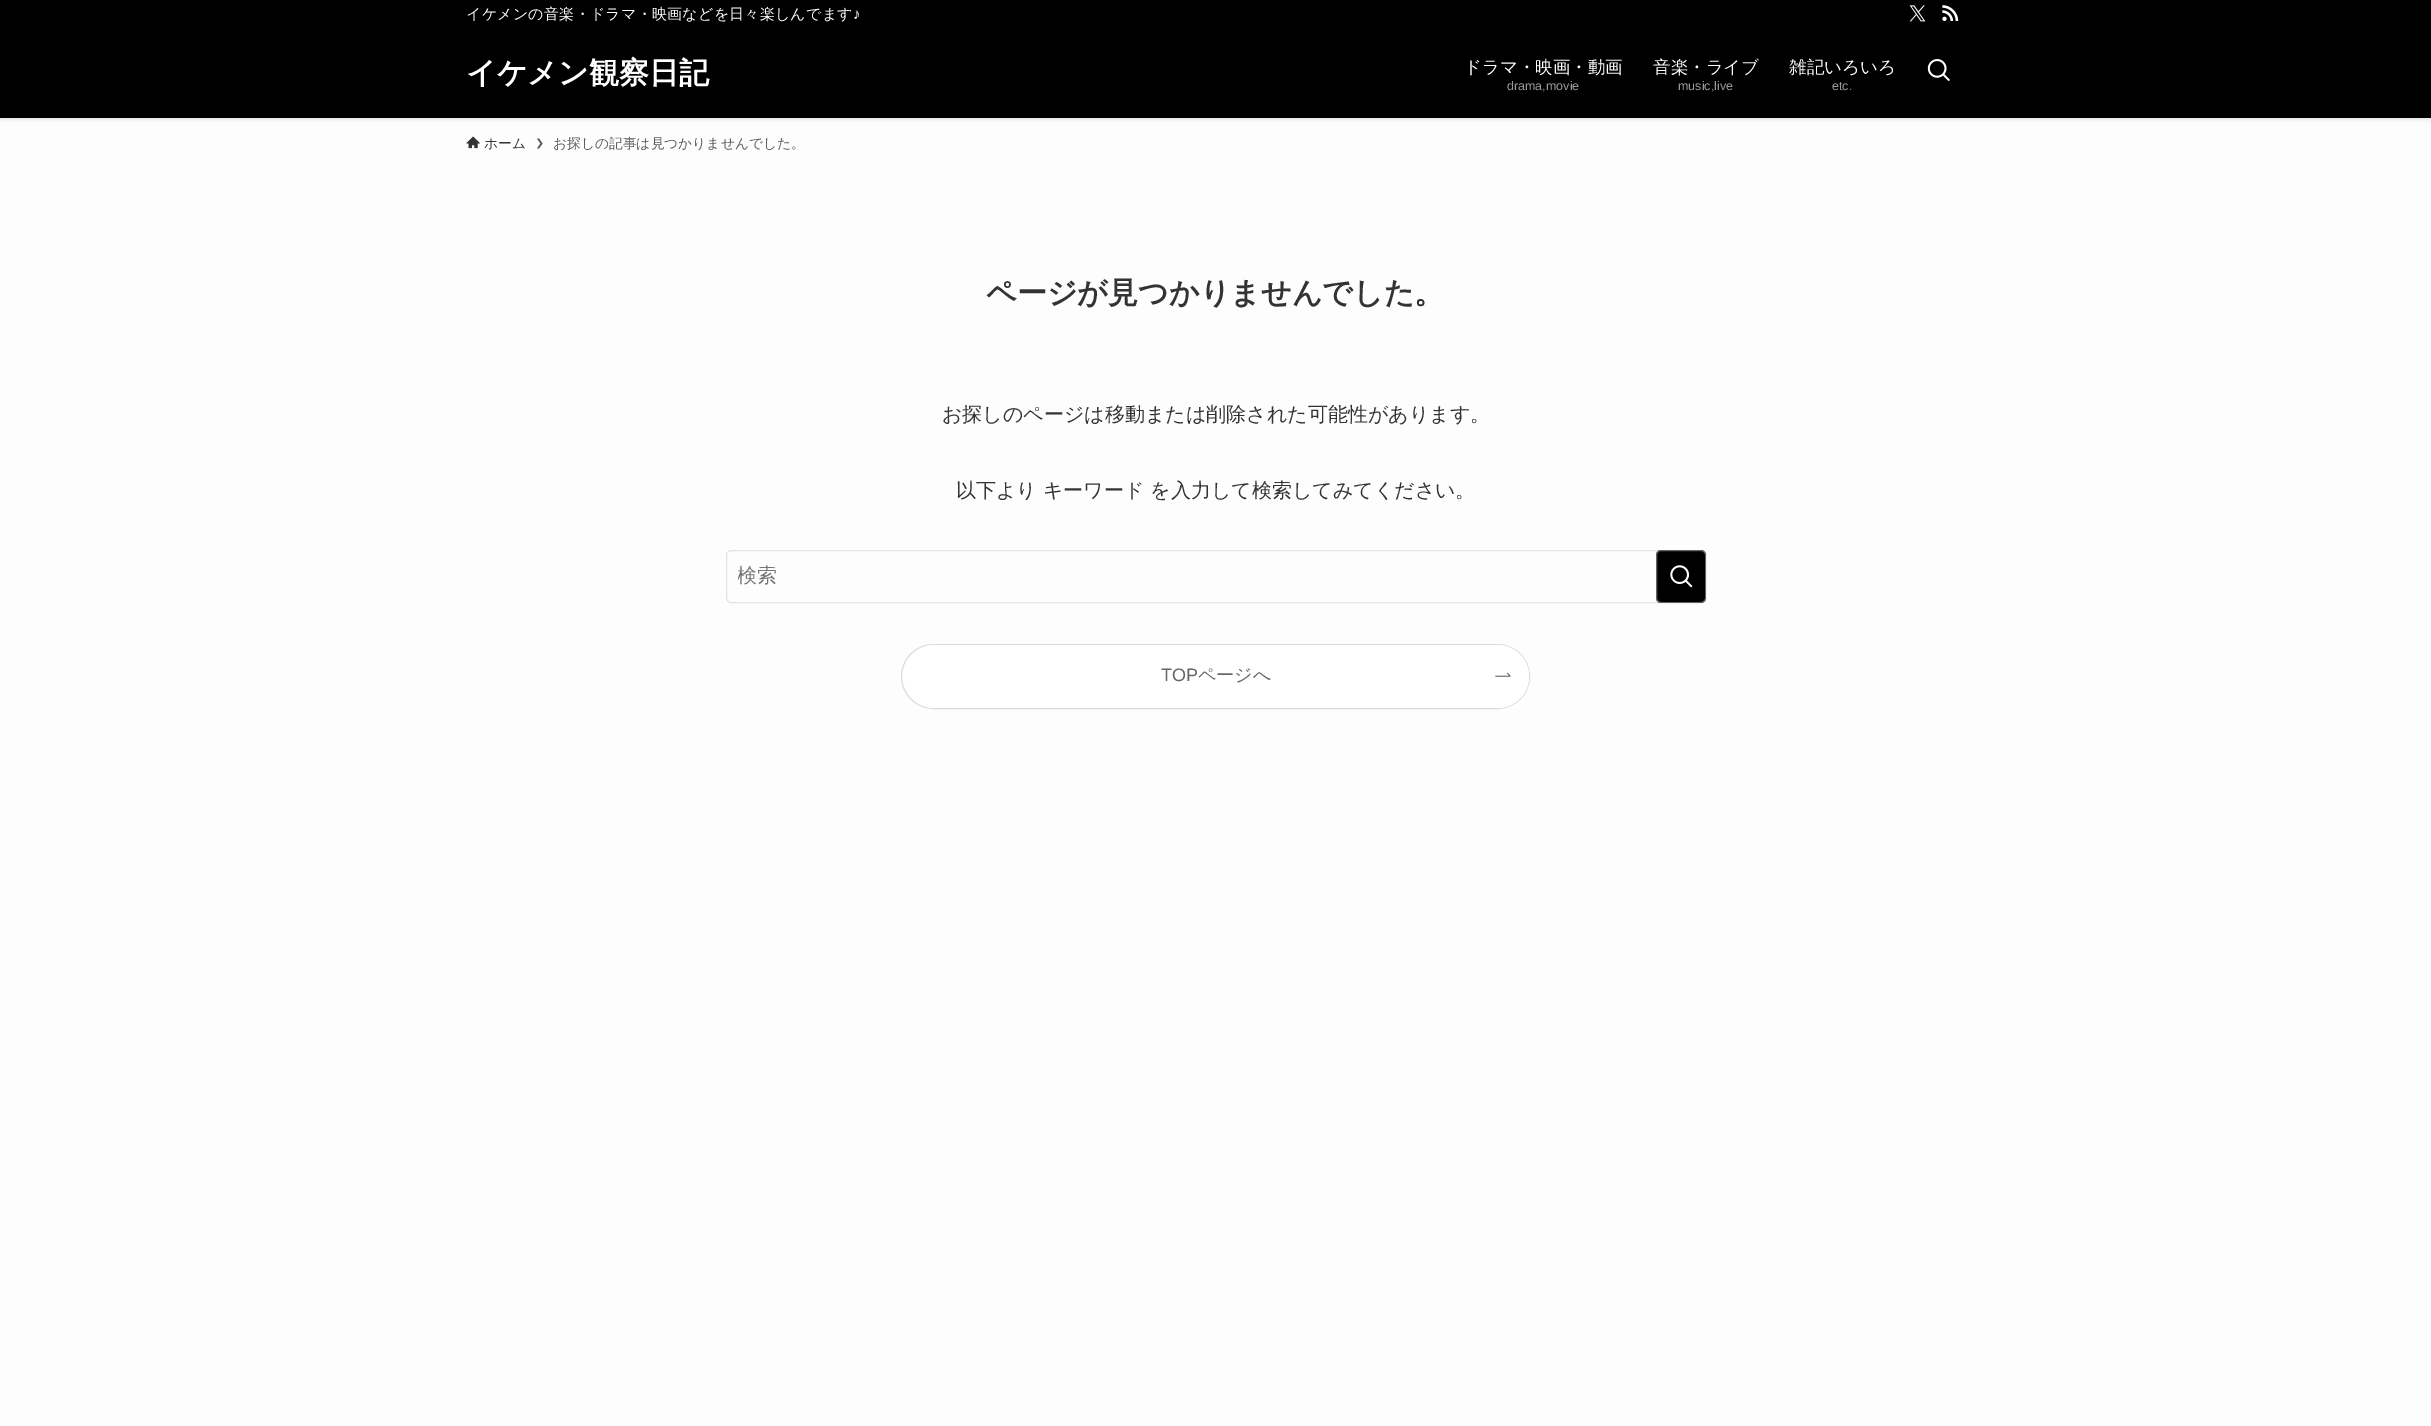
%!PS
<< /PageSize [2431 1426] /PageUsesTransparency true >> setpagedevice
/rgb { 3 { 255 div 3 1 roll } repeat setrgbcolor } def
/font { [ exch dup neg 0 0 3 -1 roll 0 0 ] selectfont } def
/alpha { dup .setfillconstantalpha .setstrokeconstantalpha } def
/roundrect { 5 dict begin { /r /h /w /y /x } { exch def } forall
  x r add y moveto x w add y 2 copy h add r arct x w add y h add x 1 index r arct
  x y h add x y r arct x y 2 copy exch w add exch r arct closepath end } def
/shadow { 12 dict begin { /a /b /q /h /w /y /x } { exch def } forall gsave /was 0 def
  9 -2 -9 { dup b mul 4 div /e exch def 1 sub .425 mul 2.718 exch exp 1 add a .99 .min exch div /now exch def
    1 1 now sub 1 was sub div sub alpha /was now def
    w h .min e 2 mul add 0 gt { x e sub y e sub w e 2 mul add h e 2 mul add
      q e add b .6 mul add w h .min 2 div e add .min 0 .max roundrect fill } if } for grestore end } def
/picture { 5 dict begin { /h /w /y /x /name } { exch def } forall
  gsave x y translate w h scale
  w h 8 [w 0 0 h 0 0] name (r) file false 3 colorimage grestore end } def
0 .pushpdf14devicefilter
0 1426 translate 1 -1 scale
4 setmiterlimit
253 253 253 rgb
0 0 2431 1426 rectfill
0 0 0 rgb
0 1 2431 118 0 2.5 0.12 shadow
0 0 2431 118 rectfill
(img/1.rgb) 1909 5 17 17 picture
(img/2.rgb) 1942 5 17 16 picture
(img/3.rgb) 1927 59 23 22 picture
(img/4.rgb) 466 136 14 13 picture
91 91 91 rgb
539 138.5 moveto 537 138.5 lineto 540.5 143.5 lineto 537 148.5 lineto 539 148.5 lineto 542.5 143.5 lineto closepath fill
227 227 227 rgb
726.5 550.5 979 52 4.5 roundrect stroke
0 0 0 rgb
1656 550 50 53 5 roundrect fill
0.5 alpha
199 199 199 rgb
1656.5 550.5 49 52 4.5 roundrect stroke
1 alpha
(img/5.rgb) 1670 565 23 23 picture
220 220 220 rgb
901.5 644.5 628 64 32 roundrect stroke
255 255 255 rgb
903 645 626 63 31.5 roundrect fill
(img/6.rgb) 1495 672 16 5 picture
/WenQuanYiZenHei-Medium 15 font
466 19 moveto 0.25 0 (イケメンの音楽・ドラマ・映画などを日々楽しんでます) ashow
/LiberationSans-Regular 15 font
853 19 moveto 0.25 0 (♪) ashow
/WenQuanYiZenHei-Bold 30 font
466 83 moveto (イケメン観察日記) show
/WenQuanYiZenHei-Medium 17.5 font
1464 73 moveto (ドラマ・映画・動画) show
/LiberationSans-Regular 12.5 font
153 153 153 rgb
1507 90 moveto (drama,movie) show
/WenQuanYiZenHei-Medium 17.5 font
255 255 255 rgb
1653 73 moveto (音楽・ライブ) show
/LiberationSans-Regular 12.5 font
153 153 153 rgb
1678 90 moveto (music,live) show
/WenQuanYiZenHei-Medium 17.5 font
255 255 255 rgb
1789 73 moveto (雑記いろいろ) show
/LiberationSans-Regular 12.5 font
153 153 153 rgb
1832 90 moveto (etc.) show
/WenQuanYiZenHei-Medium 13.75 font
51 51 51 rgb
484 148 moveto (ホーム) show
91 91 91 rgb
553 148 moveto (お探しの記事は見つかりませんでした。) show
/WenQuanYiZenHei-Bold 30 font
51 51 51 rgb
986 303 moveto (ページが見つかりませんでした。) show
/WenQuanYiZenHei-Medium 20 font
942 421 moveto (お探しのページは移動または削除された可能性があります。) show
956 497 moveto (以下より キーワード を入力して検索してみてください。) show
gsave
738 564 912 26 rectclip
117 117 117 rgb
737 582 moveto (検索) show
grestore
/LiberationSans-Regular 18 font
102 102 102 rgb
1161 681 moveto (TOP) show
/WenQuanYiZenHei-Medium 18 font
1198 681 moveto (ページへ) show
.poppdf14devicefilter showpage
